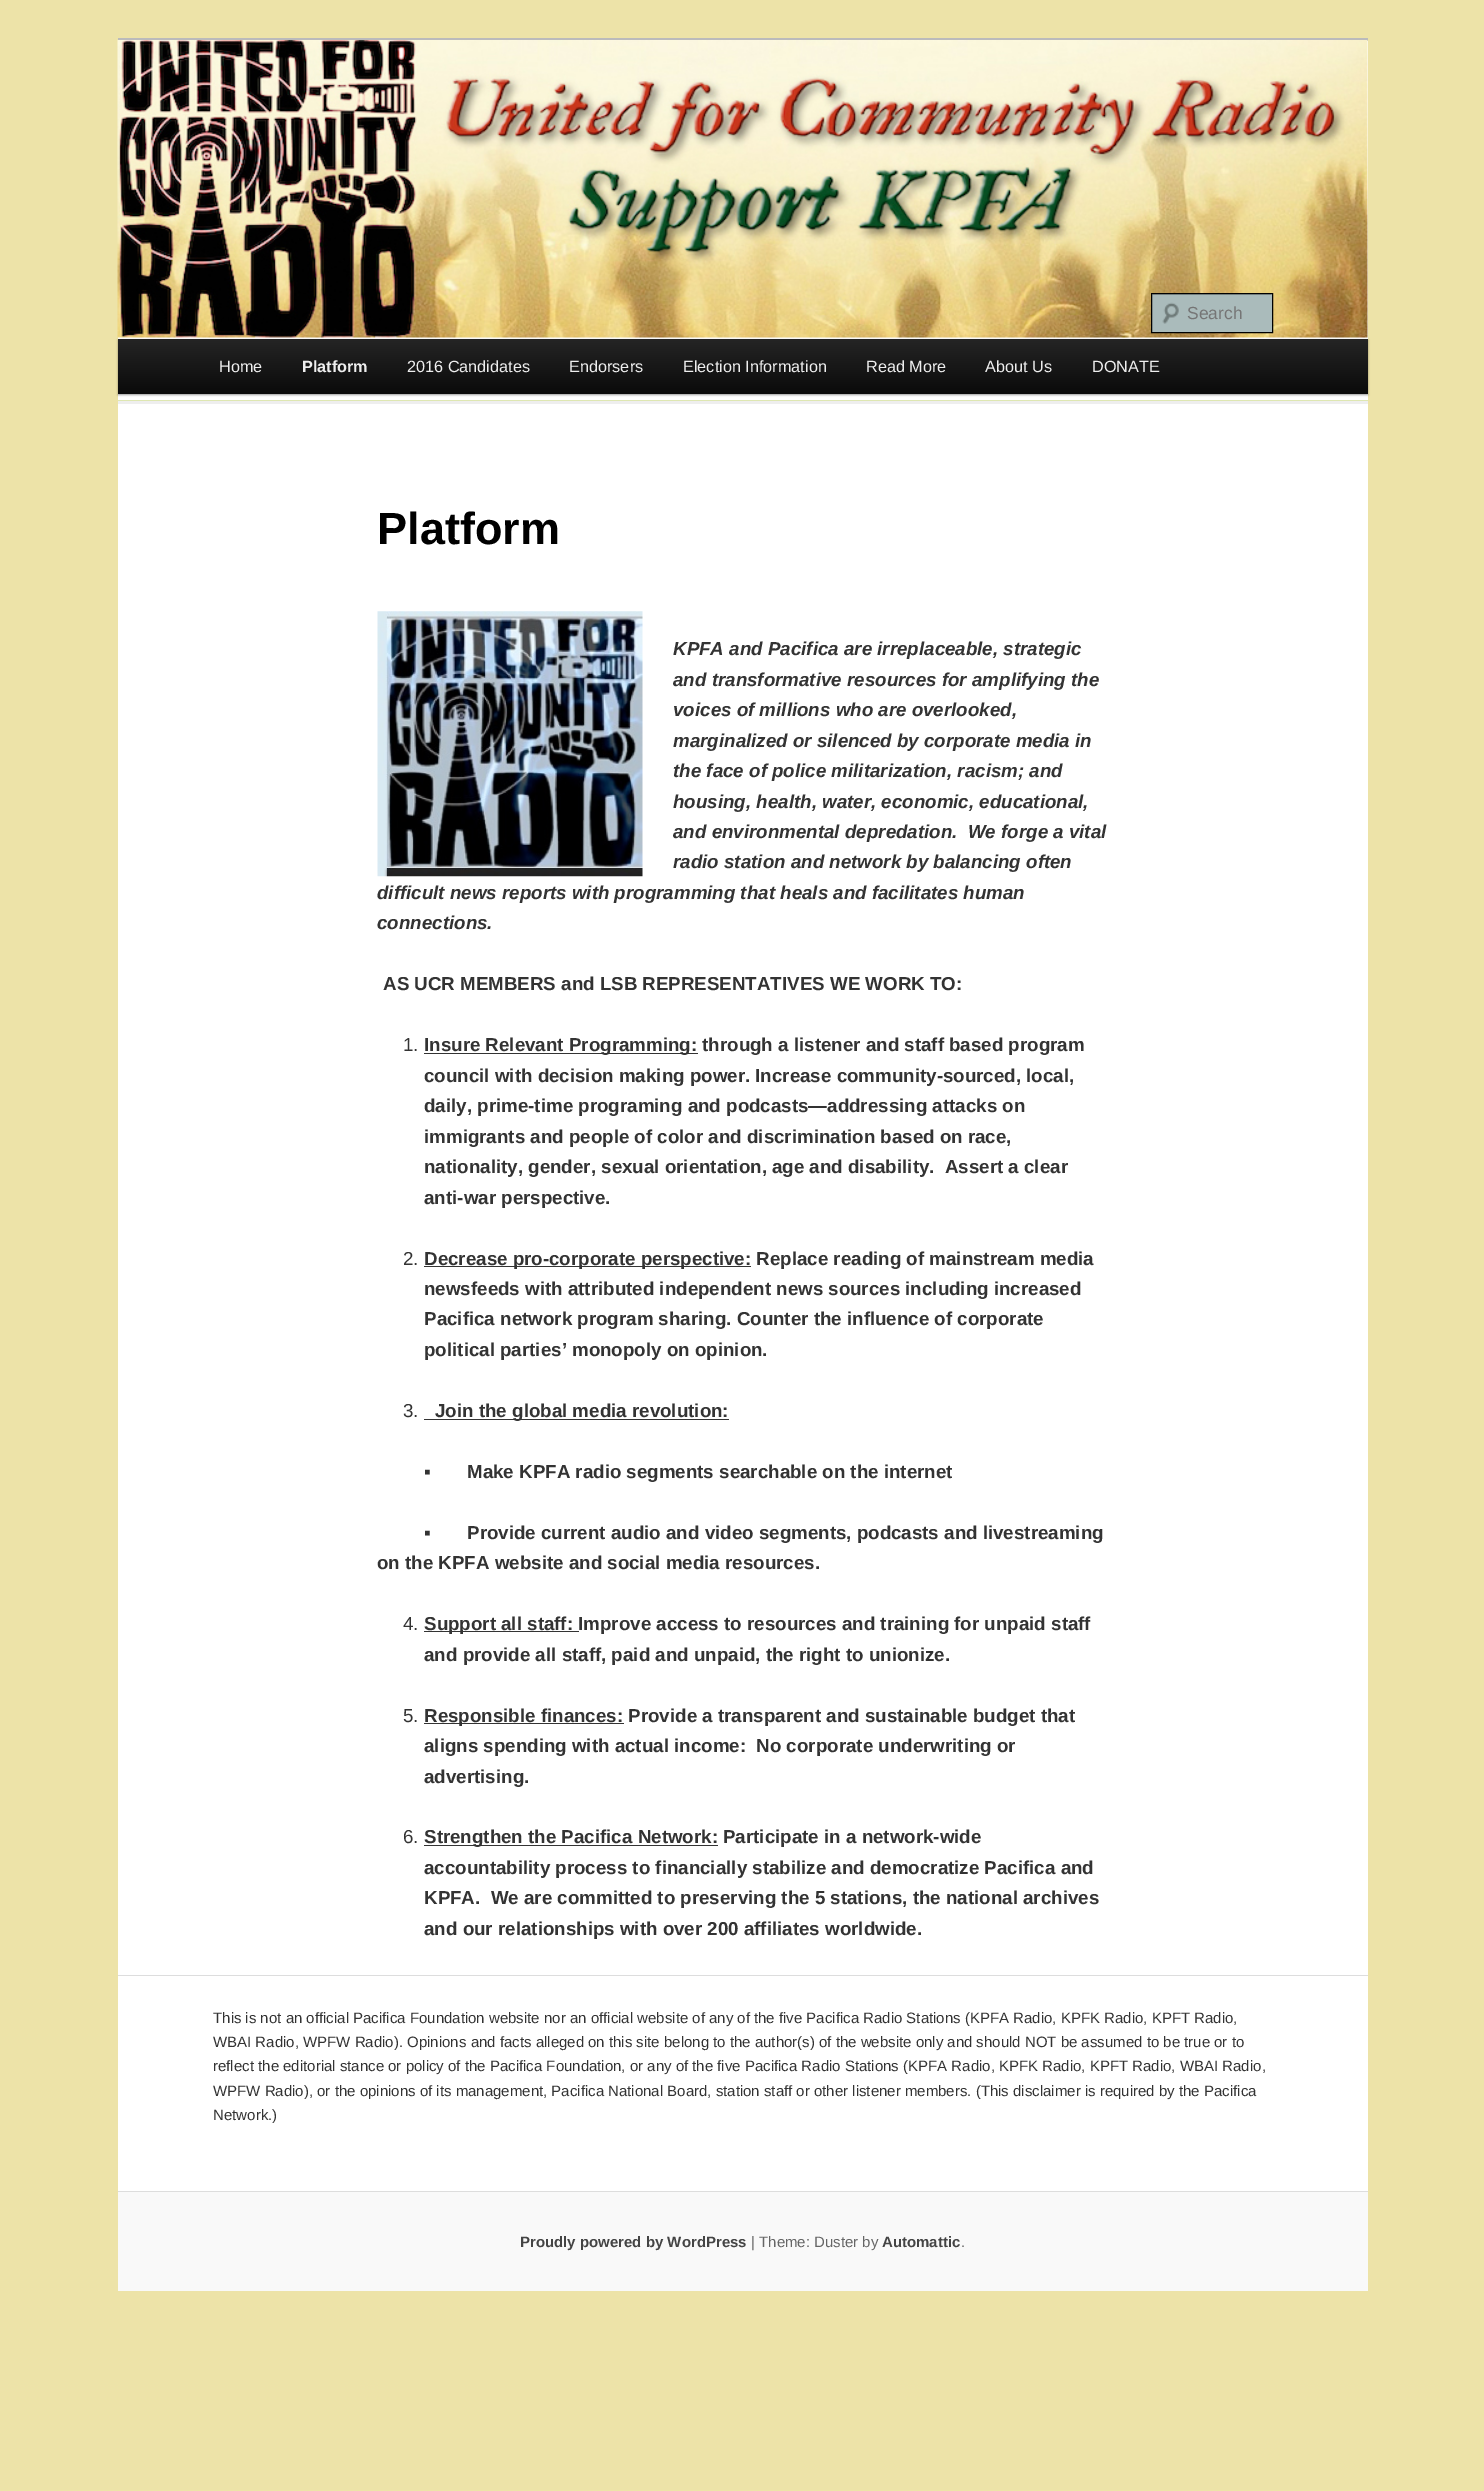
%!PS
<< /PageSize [1484 2491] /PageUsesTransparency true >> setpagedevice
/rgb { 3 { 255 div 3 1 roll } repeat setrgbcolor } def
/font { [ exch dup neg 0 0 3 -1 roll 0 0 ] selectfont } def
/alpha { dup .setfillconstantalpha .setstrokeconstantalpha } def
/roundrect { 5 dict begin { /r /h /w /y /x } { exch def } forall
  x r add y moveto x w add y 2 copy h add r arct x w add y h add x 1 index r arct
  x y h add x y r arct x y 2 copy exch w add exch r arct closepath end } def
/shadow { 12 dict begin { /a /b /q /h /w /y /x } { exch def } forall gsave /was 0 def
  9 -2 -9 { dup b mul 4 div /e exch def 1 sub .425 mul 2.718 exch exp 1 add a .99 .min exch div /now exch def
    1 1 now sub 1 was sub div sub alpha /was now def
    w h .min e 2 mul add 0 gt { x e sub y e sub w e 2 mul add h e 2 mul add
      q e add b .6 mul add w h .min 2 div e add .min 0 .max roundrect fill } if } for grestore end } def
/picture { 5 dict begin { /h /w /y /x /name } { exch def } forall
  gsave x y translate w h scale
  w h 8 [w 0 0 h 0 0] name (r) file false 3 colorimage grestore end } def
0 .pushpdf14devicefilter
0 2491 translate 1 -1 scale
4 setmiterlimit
237 227 168 rgb
0 0 1484 2491 rectfill
255 255 255 rgb
118 41 1250 2150 rectfill
187 187 187 rgb
118 38 1250 3 rectfill
0 0 0 rgb
118 340 1250 55 0 1 0.4 shadow
(img/1.rgb) 117 40 1251 298 picture
170 187 187 rgb
1152 294 120 38 rectfill
(img/2.rgb) 1162 302 17 22 picture
153 168 168 rgb
1153 294 118 1 rectfill
0 0 0 rgb
1151.5 293.5 121 39 rectstroke
gsave 118 339 moveto 1368 339 lineto 1368 394 lineto 118 394 lineto closepath clip newpath
<< /ShadingType 2 /ColorSpace /DeviceRGB /Coords [743 339 743 394] /Extend [true true] /Function << /FunctionType 2 /Domain [0 1] /C0 [0.145 0.145 0.145] /C1 [0.039 0.039 0.039] /N 1 >> >> shfill grestore
222 231 177 rgb
118 400 moveto 118 401 lineto 1368 401 lineto 1368 433 lineto 1368 400 lineto closepath fill
238 238 238 rgb
118 401 1250 3 rectfill
(img/3.rgb) 377 611 266 266 picture
[
  [424 1053 274 1 51 51 51]
  [424 1266 327 1 51 51 51]
  [424 1419 305 1 51 51 51]
  [424 1631 155 1 51 51 51]
  [424 1723 200 1 51 51 51]
  [424 1845 294 1 51 51 51]
  [118 1975 1250 1 221 221 221]
  [118 2192 1250 99 249 249 249]
  [118 2191 1250 1 221 221 221]
] { aload pop rgb rectfill } forall
/LiberationSans-Regular 17.5 font
117 117 117 rgb
1187 319 moveto (Search) show
/LiberationSans-Regular 16.25 font
238 238 238 rgb
219 372 moveto (Home) show
/LiberationSans-Bold 16.25 font
302 372 moveto (Platform) show
/LiberationSans-Regular 16.25 font
[
  [(2016 Candidates) 407 372]
  [(Endorsers) 569 372]
  [(Election Information) 683 372]
  [(Read More) 866 372]
  [(About Us) 985 372]
  [(DONATE) 1092 372]
] { aload pop moveto show } forall
/LiberationSans-Bold 45 font
0 0 0 rgb
377 544 moveto (Platform) show
/LiberationSans-BoldItalic 18.75 font
51 51 51 rgb
[
  [(KPFA and Pacifica are irreplaceable, strategic) 673 655]
  [(and transformative resources for amplifying the) 673 686]
  [(voices of millions who are overlooked,) 673 716]
  [(marginalized or silenced by corporate media in) 673 747]
  [(the face of police militarization, racism; and) 673 777]
  [(housing, health, water, economic, educational,) 673 808]
  [(and environmental depredation.  We forge a vital) 673 838]
  [(radio station and network by balancing often) 673 868]
  [(difficult news reports with programming that heals and facilitates human) 377 899]
  [(connections.) 377 929]
] { aload pop moveto show } forall
/LiberationSans-Bold 18.75 font
383 990 moveto (AS UCR MEMBERS and LSB REPRESENTATIVES WE WORK TO:) show
/LiberationSans-Regular 18.75 font
403 1051 moveto (1.) show
/LiberationSans-Bold 18.75 font
[
  [(Insure Relevant Programming: through a listener and staff based program) 424 1051]
  [(council with decision making power. Increase community-sourced, local,) 424 1082]
  [(daily, prime-time programing and podcasts—addressing attacks on) 424 1112]
  [(immigrants and people of color and discrimination based on race,) 424 1143]
  [(nationality, gender, sexual orientation, age and disability.  Assert a clear) 424 1173]
  [(anti-war perspective.) 424 1204]
] { aload pop moveto show } forall
/LiberationSans-Regular 18.75 font
403 1265 moveto (2.) show
/LiberationSans-Bold 18.75 font
[
  [(Decrease pro-corporate perspective: Replace reading of mainstream media) 424 1265]
  [(newsfeeds with attributed independent news sources including increased) 424 1295]
  [(Pacifica network program sharing. Counter the influence of corporate) 424 1325]
  [(political parties’ monopoly on opinion.) 424 1356]
] { aload pop moveto show } forall
/LiberationSans-Regular 18.75 font
403 1417 moveto (3.) show
/LiberationSans-Bold 18.75 font
435 1417 moveto (Join the global media revolution:) show
/LiberationSans-Regular 18.75 font
424 1478 moveto (▪) show
/LiberationSans-Bold 18.75 font
467 1478 moveto (Make KPFA radio segments searchable on the internet) show
/LiberationSans-Regular 18.75 font
424 1539 moveto (▪) show
/LiberationSans-Bold 18.75 font
467 1539 moveto (Provide current audio and video segments, podcasts and livestreaming) show
377 1569 moveto (on the KPFA website and social media resources.) show
/LiberationSans-Regular 18.75 font
403 1630 moveto (4.) show
/LiberationSans-Bold 18.75 font
424 1630 moveto (Support all staff: Improve access to resources and training for unpaid staff) show
424 1661 moveto (and provide all staff, paid and unpaid, the right to unionize.) show
/LiberationSans-Regular 18.75 font
403 1722 moveto (5.) show
/LiberationSans-Bold 18.75 font
[
  [(Responsible finances: Provide a transparent and sustainable budget that) 424 1722]
  [(aligns spending with actual income:  No corporate underwriting or) 424 1752]
  [(advertising.) 424 1783]
] { aload pop moveto show } forall
/LiberationSans-Regular 18.75 font
403 1843 moveto (6.) show
/LiberationSans-Bold 18.75 font
[
  [(Strengthen the Pacifica Network: Participate in a network-wide) 424 1843]
  [(accountability process to financially stabilize and democratize Pacifica and) 424 1874]
  [(KPFA.  We are committed to preserving the 5 stations, the national archives) 424 1904]
  [(and our relationships with over 200 affiliates worldwide.) 424 1935]
] { aload pop moveto show } forall
/LiberationSans-Regular 15 font
[
  [(This is not an official Pacifica Foundation website nor an official website of any of the five Pacifica Radio Stations \(KPFA Radio, KPFK Radio, KPFT Radio,) 213 2023]
  [(WBAI Radio, WPFW Radio\). Opinions and facts alleged on this site belong to the author\(s\) of the website only and should NOT be assumed to be true or to) 213 2047]
  [(reflect the editorial stance or policy of the Pacifica Foundation, or any of the five Pacifica Radio Stations \(KPFA Radio, KPFK Radio, KPFT Radio, WBAI Radio,) 213 2071]
  [(WPFW Radio\), or the opinions of its management, Pacifica National Board, station staff or other listener members. \(This disclaimer is required by the Pacifica) 213 2096]
  [(Network.\)) 213 2120]
] { aload pop moveto show } forall
/LiberationSans-Bold 15 font
68 68 68 rgb
520 2247 moveto (Proudly powered by WordPress) show
/LiberationSans-Regular 15 font
102 102 102 rgb
751 2247 moveto (| Theme: Duster by) show
/LiberationSans-Bold 15 font
68 68 68 rgb
882 2247 moveto (Automattic) show
/LiberationSans-Regular 15 font
102 102 102 rgb
961 2247 moveto (.) show
.poppdf14devicefilter showpage
